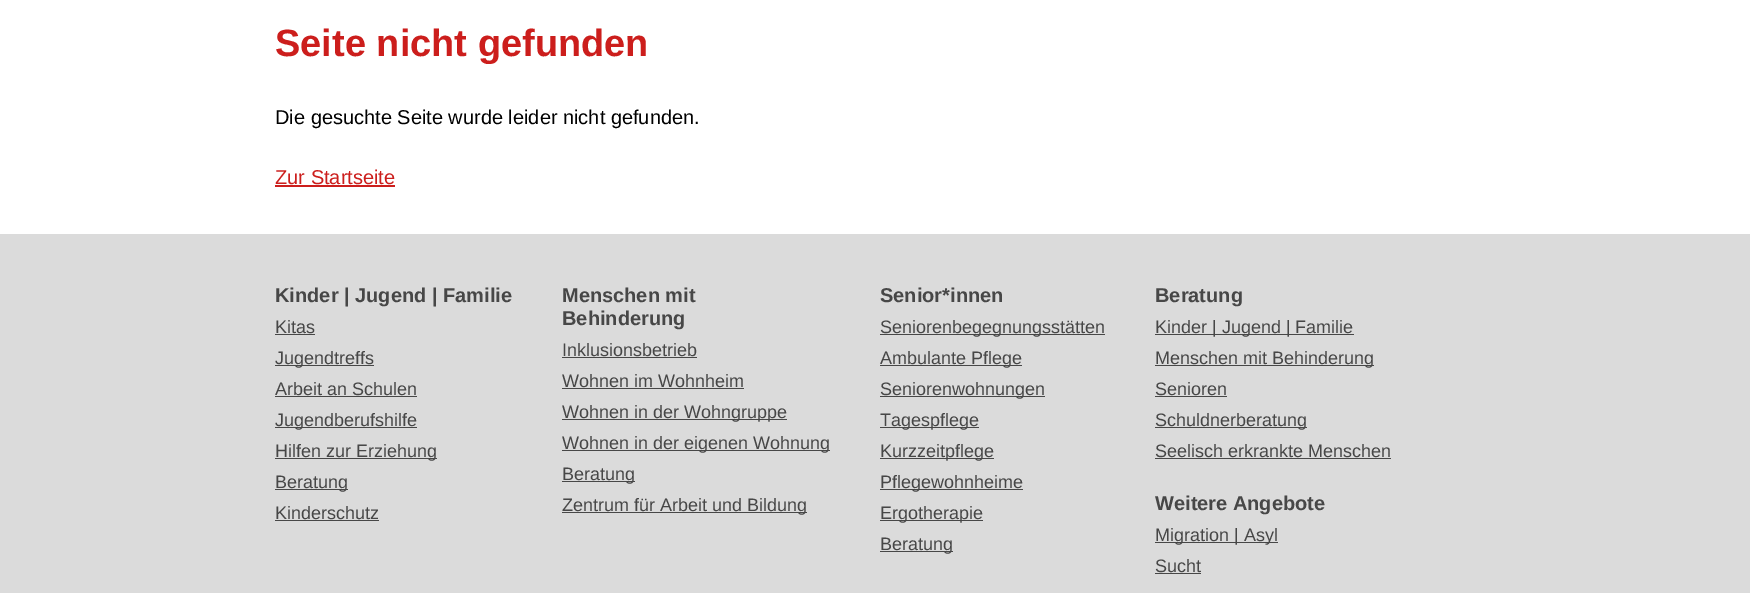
%!PS
<< /PageSize [1750 593] >> setpagedevice
/rgb { 3 { 255 div 3 1 roll } repeat setrgbcolor } def
/font { [ exch dup neg 0 0 3 -1 roll 0 0 ] selectfont } def
0 593 translate 1 -1 scale
4 setmiterlimit
219 219 219 rgb
0 0 1750 593 rectfill
[
  [0 0 1750 234 255 255 255]
  [275 185 120 2 204 30 28]
  [275 334 40 1 71 71 71]
  [275 365 99 1 71 71 71]
  [275 396 142 1 71 71 71]
  [275 427 142 1 71 71 71]
  [275 458 162 1 71 71 71]
  [275 489 73 1 71 71 71]
  [275 520 104 1 71 71 71]
  [562 357 135 1 71 71 71]
  [562 388 182 1 71 71 71]
  [562 419 225 1 71 71 71]
  [562 450 268 1 71 71 71]
  [562 481 73 1 71 71 71]
  [562 512 245 1 71 71 71]
  [880 334 225 1 71 71 71]
  [880 365 142 1 71 71 71]
  [880 396 165 1 71 71 71]
  [880 427 99 1 71 71 71]
  [880 458 114 1 71 71 71]
  [880 489 143 1 71 71 71]
  [880 520 103 1 71 71 71]
  [880 551 73 1 71 71 71]
  [1155 334 199 1 71 71 71]
  [1155 365 219 1 71 71 71]
  [1155 396 72 1 71 71 71]
  [1155 427 152 1 71 71 71]
  [1155 458 236 1 71 71 71]
  [1155 542 123 1 71 71 71]
  [1155 573 46 1 71 71 71]
] { aload pop rgb rectfill } forall
/LiberationSans-Bold 38 font
204 30 28 rgb
275 56 moveto (Seite nicht gefunden) show
/LiberationSans-Regular 20 font
0 0 0 rgb
275 124 moveto (Die gesuchte Seite wurde leider nicht gefunden.) show
204 30 28 rgb
275 184 moveto (Zur Startseite) show
/LiberationSans-Bold 20 font
71 71 71 rgb
275 302 moveto (Kinder | Jugend | Familie) show
/LiberationSans-Regular 18 font
[
  [(Kitas) 275 333]
  [(Jugendtreffs) 275 364]
  [(Arbeit an Schulen) 275 395]
  [(Jugendberufshilfe) 275 426]
  [(Hilfen zur Erziehung) 275 457]
  [(Beratung) 275 488]
  [(Kinderschutz) 275 519]
] { aload pop moveto show } forall
/LiberationSans-Bold 20 font
562 302 moveto (Menschen mit) show
562 325 moveto (Behinderung) show
/LiberationSans-Regular 18 font
[
  [(Inklusionsbetrieb) 562 356]
  [(Wohnen im Wohnheim) 562 387]
  [(Wohnen in der Wohngruppe) 562 418]
  [(Wohnen in der eigenen Wohnung) 562 449]
  [(Beratung) 562 480]
  [(Zentrum für Arbeit und Bildung) 562 511]
] { aload pop moveto show } forall
/LiberationSans-Bold 20 font
880 302 moveto (Senior*innen) show
/LiberationSans-Regular 18 font
[
  [(Seniorenbegegnungsstätten) 880 333]
  [(Ambulante Pflege) 880 364]
  [(Seniorenwohnungen) 880 395]
  [(Tagespflege) 880 426]
  [(Kurzzeitpflege) 880 457]
  [(Pflegewohnheime) 880 488]
  [(Ergotherapie) 880 519]
  [(Beratung) 880 550]
] { aload pop moveto show } forall
/LiberationSans-Bold 20 font
1155 302 moveto (Beratung) show
/LiberationSans-Regular 18 font
[
  [(Kinder | Jugend | Familie) 1155 333]
  [(Menschen mit Behinderung) 1155 364]
  [(Senioren) 1155 395]
  [(Schuldnerberatung) 1155 426]
  [(Seelisch erkrankte Menschen) 1155 457]
] { aload pop moveto show } forall
/LiberationSans-Bold 20 font
1155 510 moveto (Weitere Angebote) show
/LiberationSans-Regular 18 font
1155 541 moveto (Migration | Asyl) show
1155 572 moveto (Sucht) show
showpage
